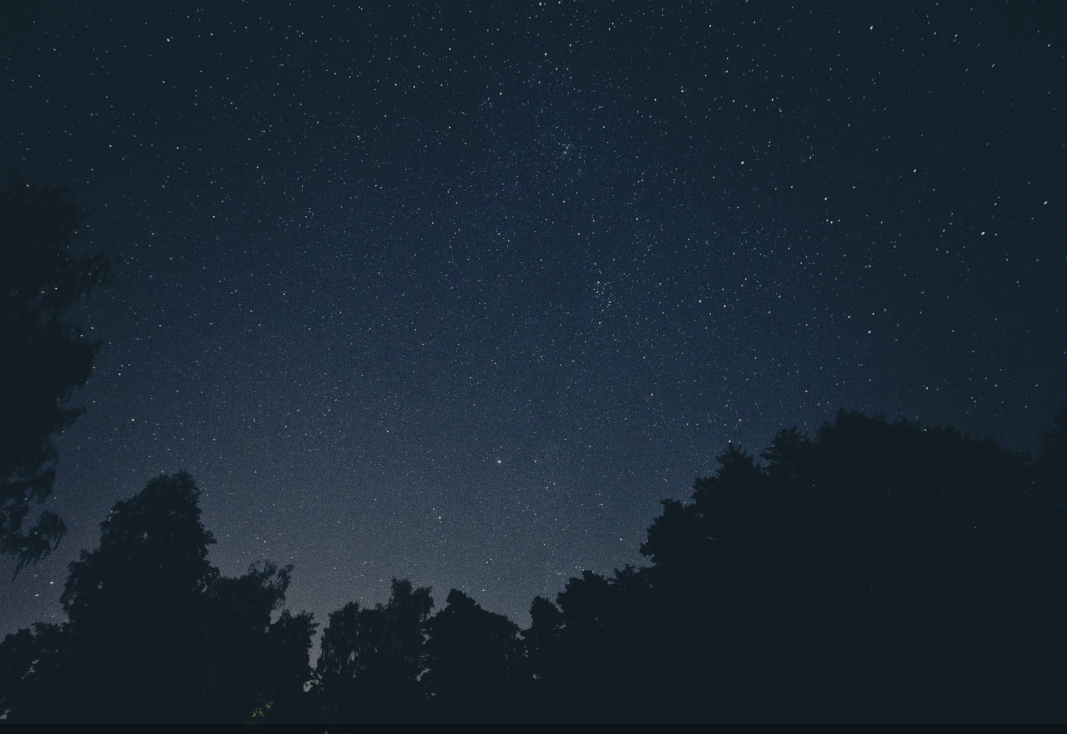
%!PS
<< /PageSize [1067 734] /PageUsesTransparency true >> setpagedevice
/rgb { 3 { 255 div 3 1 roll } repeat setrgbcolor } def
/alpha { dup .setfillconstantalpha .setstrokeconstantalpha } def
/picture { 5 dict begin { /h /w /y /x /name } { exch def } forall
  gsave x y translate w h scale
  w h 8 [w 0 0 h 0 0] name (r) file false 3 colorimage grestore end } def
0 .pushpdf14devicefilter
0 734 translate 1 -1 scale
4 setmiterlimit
255 255 255 rgb
0 0 1067 734 rectfill
(img/1.rgb) 0 0 1067 734 picture
0.3 alpha
0 0 0 rgb
0 724 1067 10 rectfill
.poppdf14devicefilter showpage
